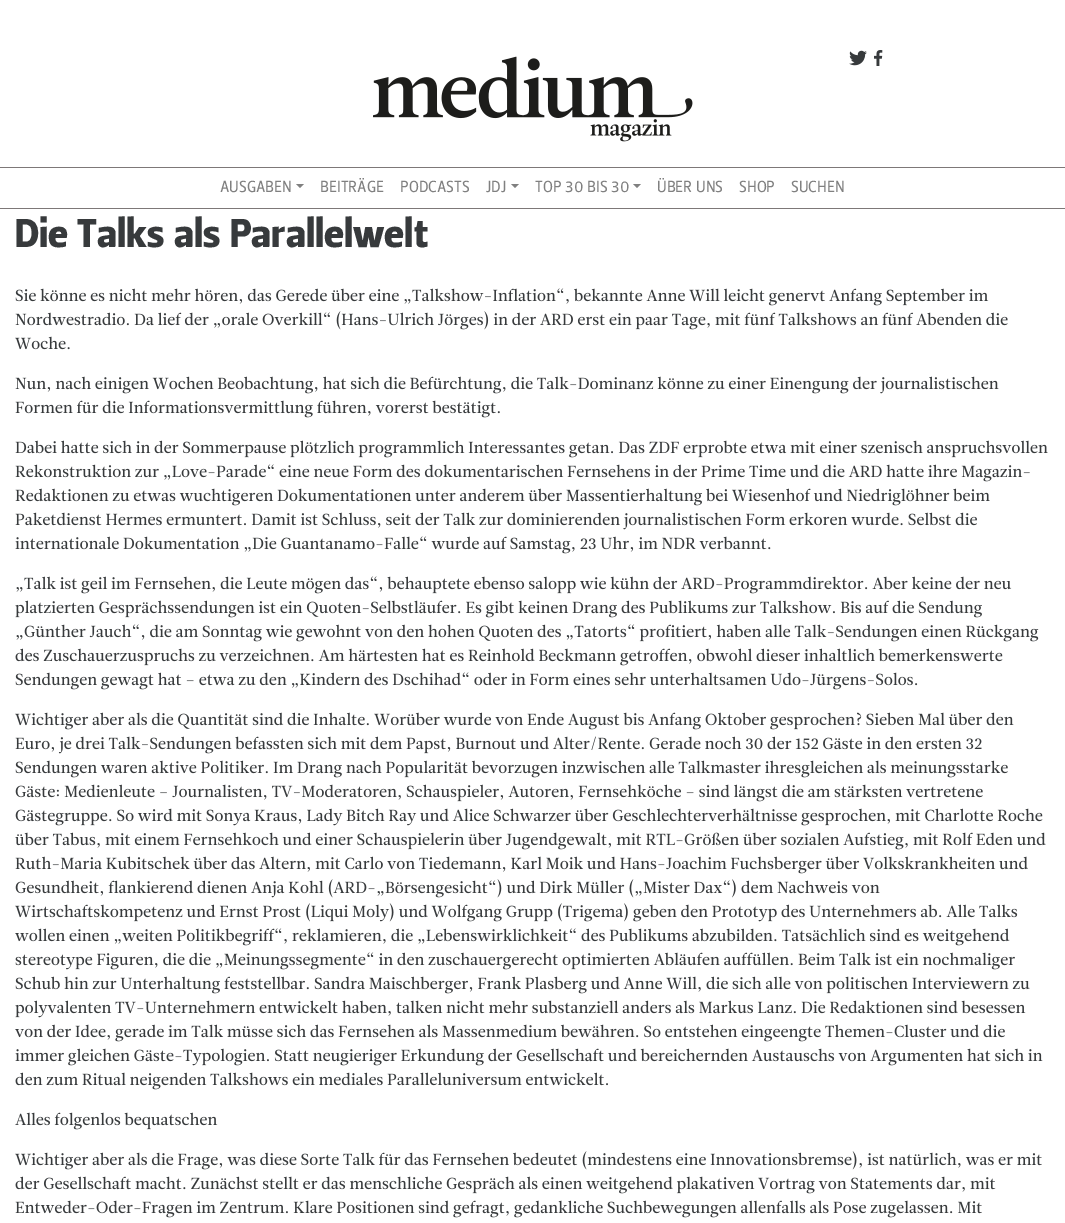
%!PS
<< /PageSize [1065 1223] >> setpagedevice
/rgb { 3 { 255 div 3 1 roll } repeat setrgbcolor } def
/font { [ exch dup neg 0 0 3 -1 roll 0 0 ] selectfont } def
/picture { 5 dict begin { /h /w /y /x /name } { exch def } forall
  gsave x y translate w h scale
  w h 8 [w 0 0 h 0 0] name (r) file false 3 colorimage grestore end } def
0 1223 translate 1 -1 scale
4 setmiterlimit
255 255 255 rgb
0 0 1065 1223 rectfill
(img/1.rgb) 373 56 320 86 picture
(img/2.rgb) 849 50 18 16 picture
(img/3.rgb) 874 50 9 16 picture
125 120 120 rgb
0 167 1065 1 rectfill
0 208 1065 1 rectfill
128 128 128 rgb
296 184 moveto 304 184 lineto 300 188 lineto closepath fill
511 184 moveto 519 184 lineto 515 188 lineto closepath fill
633 184 moveto 641 184 lineto 637 188 lineto closepath fill
(img/4.rgb) 15 288 974 18 picture
(img/5.rgb) 15 311 993 19 picture
(img/6.rgb) 15 336 55 14 picture
(img/7.rgb) 15 376 984 18 picture
(img/8.rgb) 15 400 485 18 picture
(img/9.rgb) 15 440 1033 18 picture
(img/10.rgb) 15 464 1015 18 picture
(img/11.rgb) 15 488 975 18 picture
(img/12.rgb) 15 512 962 18 picture
(img/13.rgb) 15 536 756 18 picture
(img/14.rgb) 16 576 996 18 picture
(img/15.rgb) 15 600 967 18 picture
(img/16.rgb) 16 624 1023 18 picture
(img/17.rgb) 15 648 988 18 picture
(img/18.rgb) 15 672 903 18 picture
(img/19.rgb) 15 712 999 18 picture
(img/20.rgb) 15 736 967 18 picture
(img/21.rgb) 15 760 993 18 picture
(img/22.rgb) 15 784 968 18 picture
(img/23.rgb) 15 808 1028 18 picture
(img/24.rgb) 15 832 1031 18 picture
(img/25.rgb) 15 856 1013 18 picture
(img/26.rgb) 15 879 865 19 picture
(img/27.rgb) 15 903 1003 19 picture
(img/28.rgb) 15 928 995 18 picture
(img/29.rgb) 15 952 1000 18 picture
(img/30.rgb) 15 976 1015 18 picture
(img/31.rgb) 15 1000 1011 18 picture
(img/32.rgb) 15 1024 990 18 picture
(img/33.rgb) 15 1048 1028 18 picture
(img/34.rgb) 15 1072 593 18 picture
(img/35.rgb) 15 1112 203 18 picture
(img/36.rgb) 15 1151 1027 19 picture
(img/37.rgb) 15 1176 981 18 picture
(img/38.rgb) 15 1200 967 18 picture
/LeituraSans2-Regular 16 font
[
  [(AUSGABEN) 220 192]
  [(BEITRÄGE) 320 192]
  [(PODCASTS) 400 192]
  [(JDJ) 486 192]
  [(TOP 30 BIS 30) 535 192]
  [(ÜBER UNS) 657 192]
  [(SHOP) 739 192]
  [(SUCHEN) 791 192]
] { aload pop moveto show } forall
/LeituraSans-Regular 40 font
55 58 60 rgb
15 247 moveto (Die Talks als Parallelwelt) show
showpage
